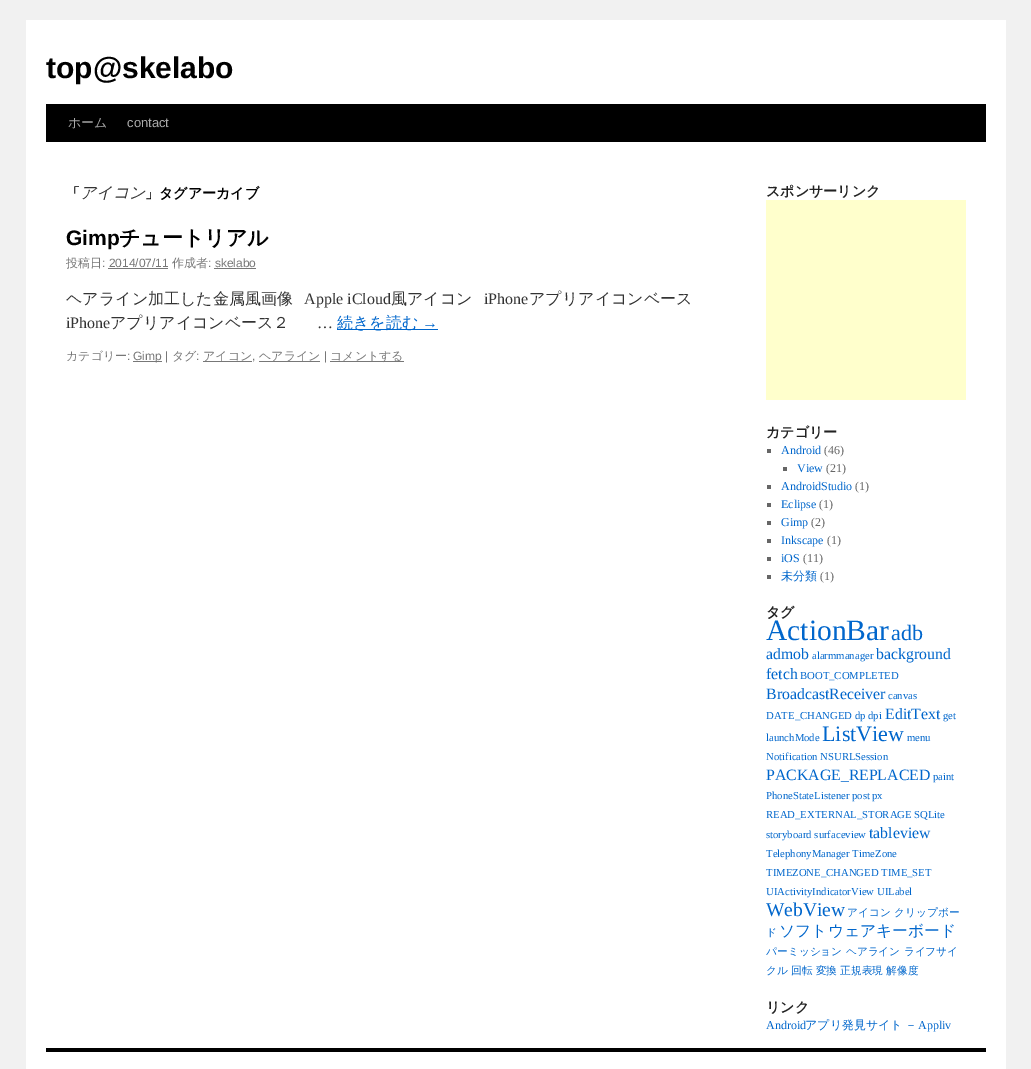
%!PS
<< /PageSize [1031 1069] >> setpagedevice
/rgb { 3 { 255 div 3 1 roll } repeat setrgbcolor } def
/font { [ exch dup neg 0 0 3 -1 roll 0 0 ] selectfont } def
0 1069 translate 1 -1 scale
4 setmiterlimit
241 241 241 rgb
0 0 1031 1069 rectfill
[
  [26 20 980 1049 255 255 255]
  [46 104 940 38 0 0 0]
  [108 268 60 1 119 119 119]
  [214 268 42 1 119 119 119]
  [337 329 101 1 0 102 204]
  [133 361 29 1 119 119 119]
  [203 361 49 1 119 119 119]
  [259 361 61 1 119 119 119]
  [330 361 74 1 119 119 119]
  [766 200 200 200 255 255 204]
  [767 449 4 4 102 102 102]
  [783 467 4 4 102 102 102]
  [767 485 4 4 102 102 102]
  [767 503 4 4 102 102 102]
  [767 521 4 4 102 102 102]
  [767 539 4 4 102 102 102]
  [767 557 4 4 102 102 102]
  [767 575 4 4 102 102 102]
  [46 1048 940 4 0 0 0]
] { aload pop rgb rectfill } forall
/LiberationSans-Bold 30 font
46 78 moveto (top@skelabo) show
/WenQuanYiZenHei-Medium 13 font
170 170 170 rgb
68 127 moveto (ホーム) show
/LiberationSans-Regular 13 font
127 127 moveto (contact) show
/WenQuanYiZenHei-Bold 14 font
0 0 0 rgb
66 198 moveto (「) show
/WenQuanYiZenHei-MediumItalic 16 font
51 51 51 rgb
80 198 moveto (アイコン) show
/WenQuanYiZenHei-Bold 14 font
0 0 0 rgb
145 198 moveto (」タグアーカイブ) show
/LiberationSans-Bold 21 font
66 245 moveto (Gimp) show
/WenQuanYiZenHei-Bold 21 font
119 245 moveto (チュートリアル) show
/WenQuanYiZenHei-Medium 12 font
119 119 119 rgb
66 267 moveto (投稿日) show
/LiberationSans-Regular 12 font
102 267 moveto (: 2014/07/11) show
/WenQuanYiZenHei-Medium 12 font
172 267 moveto (作成者) show
/LiberationSans-Regular 12 font
208 267 moveto (: skelabo) show
/WenQuanYiZenHei-Medium 16 font
51 51 51 rgb
66 304 moveto (ヘアライン加工した金属風画像) show
/LiberationSerif-Regular 16 font
304 304 moveto (Apple iCloud) show
/WenQuanYiZenHei-Medium 16 font
391 304 moveto (風アイコン) show
/LiberationSerif-Regular 16 font
484 304 moveto (iPhone) show
/WenQuanYiZenHei-Medium 16 font
529 304 moveto (アプリアイコンベース) show
/LiberationSerif-Regular 16 font
66 328 moveto (iPhone) show
/WenQuanYiZenHei-Medium 16 font
110 328 moveto (アプリアイコンベース２) show
/LiberationSerif-Regular 16 font
317 328 moveto (…) show
/WenQuanYiZenHei-Medium 16 font
0 102 204 rgb
337 328 moveto (続きを読む) show
/LiberationSerif-Regular 16 font
422 328 moveto (→) show
/WenQuanYiZenHei-Medium 12 font
119 119 119 rgb
66 360 moveto (カテゴリー) show
/LiberationSans-Regular 12 font
127 360 moveto (:) show
133 360 moveto (Gimp |) show
/WenQuanYiZenHei-Medium 12 font
172 360 moveto (タグ) show
/LiberationSans-Regular 12 font
196 360 moveto (:) show
/WenQuanYiZenHei-Medium 12 font
203 360 moveto (アイコン) show
/LiberationSans-Regular 12 font
252 360 moveto (,) show
/WenQuanYiZenHei-Medium 12 font
259 360 moveto (ヘアライン) show
/LiberationSans-Regular 12 font
324 360 moveto (|) show
/WenQuanYiZenHei-Medium 12 font
330 360 moveto (コメントする) show
/WenQuanYiZenHei-Bold 14 font
34 34 34 rgb
766 196 moveto (スポンサーリンク) show
766 437 moveto (カテゴリー) show
/LiberationSerif-Regular 12 font
0 102 204 rgb
781 454 moveto (Android) show
102 102 102 rgb
824 454 moveto (\(46\)) show
0 102 204 rgb
797 472 moveto (View) show
102 102 102 rgb
826 472 moveto (\(21\)) show
0 102 204 rgb
781 490 moveto (AndroidStudio) show
102 102 102 rgb
855 490 moveto (\(1\)) show
0 102 204 rgb
781 508 moveto (Eclipse) show
102 102 102 rgb
819 508 moveto (\(1\)) show
0 102 204 rgb
781 526 moveto (Gimp) show
102 102 102 rgb
811 526 moveto (\(2\)) show
0 102 204 rgb
781 544 moveto (Inkscape) show
102 102 102 rgb
827 544 moveto (\(1\)) show
0 102 204 rgb
781 562 moveto (iOS) show
102 102 102 rgb
803 562 moveto (\(11\)) show
/WenQuanYiZenHei-Medium 12 font
0 102 204 rgb
781 580 moveto (未分類) show
/LiberationSerif-Regular 12 font
102 102 102 rgb
820 580 moveto (\(1\)) show
/WenQuanYiZenHei-Bold 14 font
34 34 34 rgb
766 617 moveto (タグ) show
/LiberationSerif-Regular 29.5 font
0 102 204 rgb
766 640 moveto (ActionBar) show
/LiberationSerif-Regular 22 font
891 640 moveto (adb) show
/LiberationSerif-Regular 15.8 font
766 659 moveto (admob) show
/LiberationSerif-Regular 10.7 font
812 659 moveto (alarmmanager) show
/LiberationSerif-Regular 15.8 font
876 659 moveto (background) show
766 679 moveto (fetch) show
/LiberationSerif-Regular 10.7 font
800 679 moveto (BOOT_COMPLETED) show
/LiberationSerif-Regular 15.8 font
766 699 moveto (BroadcastReceiver) show
/LiberationSerif-Regular 10.7 font
[
  [(canvas) 888 699]
  [(DATE_CHANGED dp) 766 719]
  [(dpi) 868 719]
] { aload pop moveto show } forall
/LiberationSerif-Regular 15.8 font
885 719 moveto (EditText) show
/LiberationSerif-Regular 10.7 font
943 719 moveto (get) show
766 741 moveto (launchMode) show
/LiberationSerif-Regular 22 font
822 741 moveto (ListView) show
/LiberationSerif-Regular 10.7 font
907 741 moveto (menu) show
766 760 moveto (Notification NSURLSession) show
/LiberationSerif-Regular 15.8 font
766 780 moveto (PACKAGE_REPLACED) show
/LiberationSerif-Regular 10.7 font
[
  [(paint) 933 780]
  [(PhoneStateListener post) 766 799]
  [(px) 872 799]
  [(READ_EXTERNAL_STORAGE SQLite) 766 818]
  [(storyboard surfaceview) 766 838]
] { aload pop moveto show } forall
/LiberationSerif-Regular 15.8 font
869 838 moveto (tableview) show
/LiberationSerif-Regular 10.7 font
[
  [(TelephonyManager TimeZone) 766 857]
  [(TIMEZONE_CHANGED TIME_SET) 766 876]
  [(UIActivityIndicatorView UILabel) 766 895]
] { aload pop moveto show } forall
/LiberationSerif-Regular 19.5 font
766 916 moveto (WebView) show
/WenQuanYiZenHei-Medium 10.7 font
847 916 moveto (アイコン クリップボー) show
766 936 moveto (ド) show
/WenQuanYiZenHei-Medium 15.8 font
779 936 moveto (ソフトウェアキーボード) show
/WenQuanYiZenHei-Medium 10.7 font
766 955 moveto (パーミッション ヘアライン ライフサイ) show
766 974 moveto (クル 回転 変換 正規表現 解像度) show
/WenQuanYiZenHei-Bold 14 font
34 34 34 rgb
766 1012 moveto (リンク) show
/LiberationSerif-Regular 12 font
0 102 204 rgb
766 1029 moveto (Android) show
/WenQuanYiZenHei-Medium 12 font
805 1029 moveto -1 0 32 (アプリ発見サイト －) widthshow
/LiberationSerif-Regular 12 font
918 1029 moveto (Appliv) show
showpage
